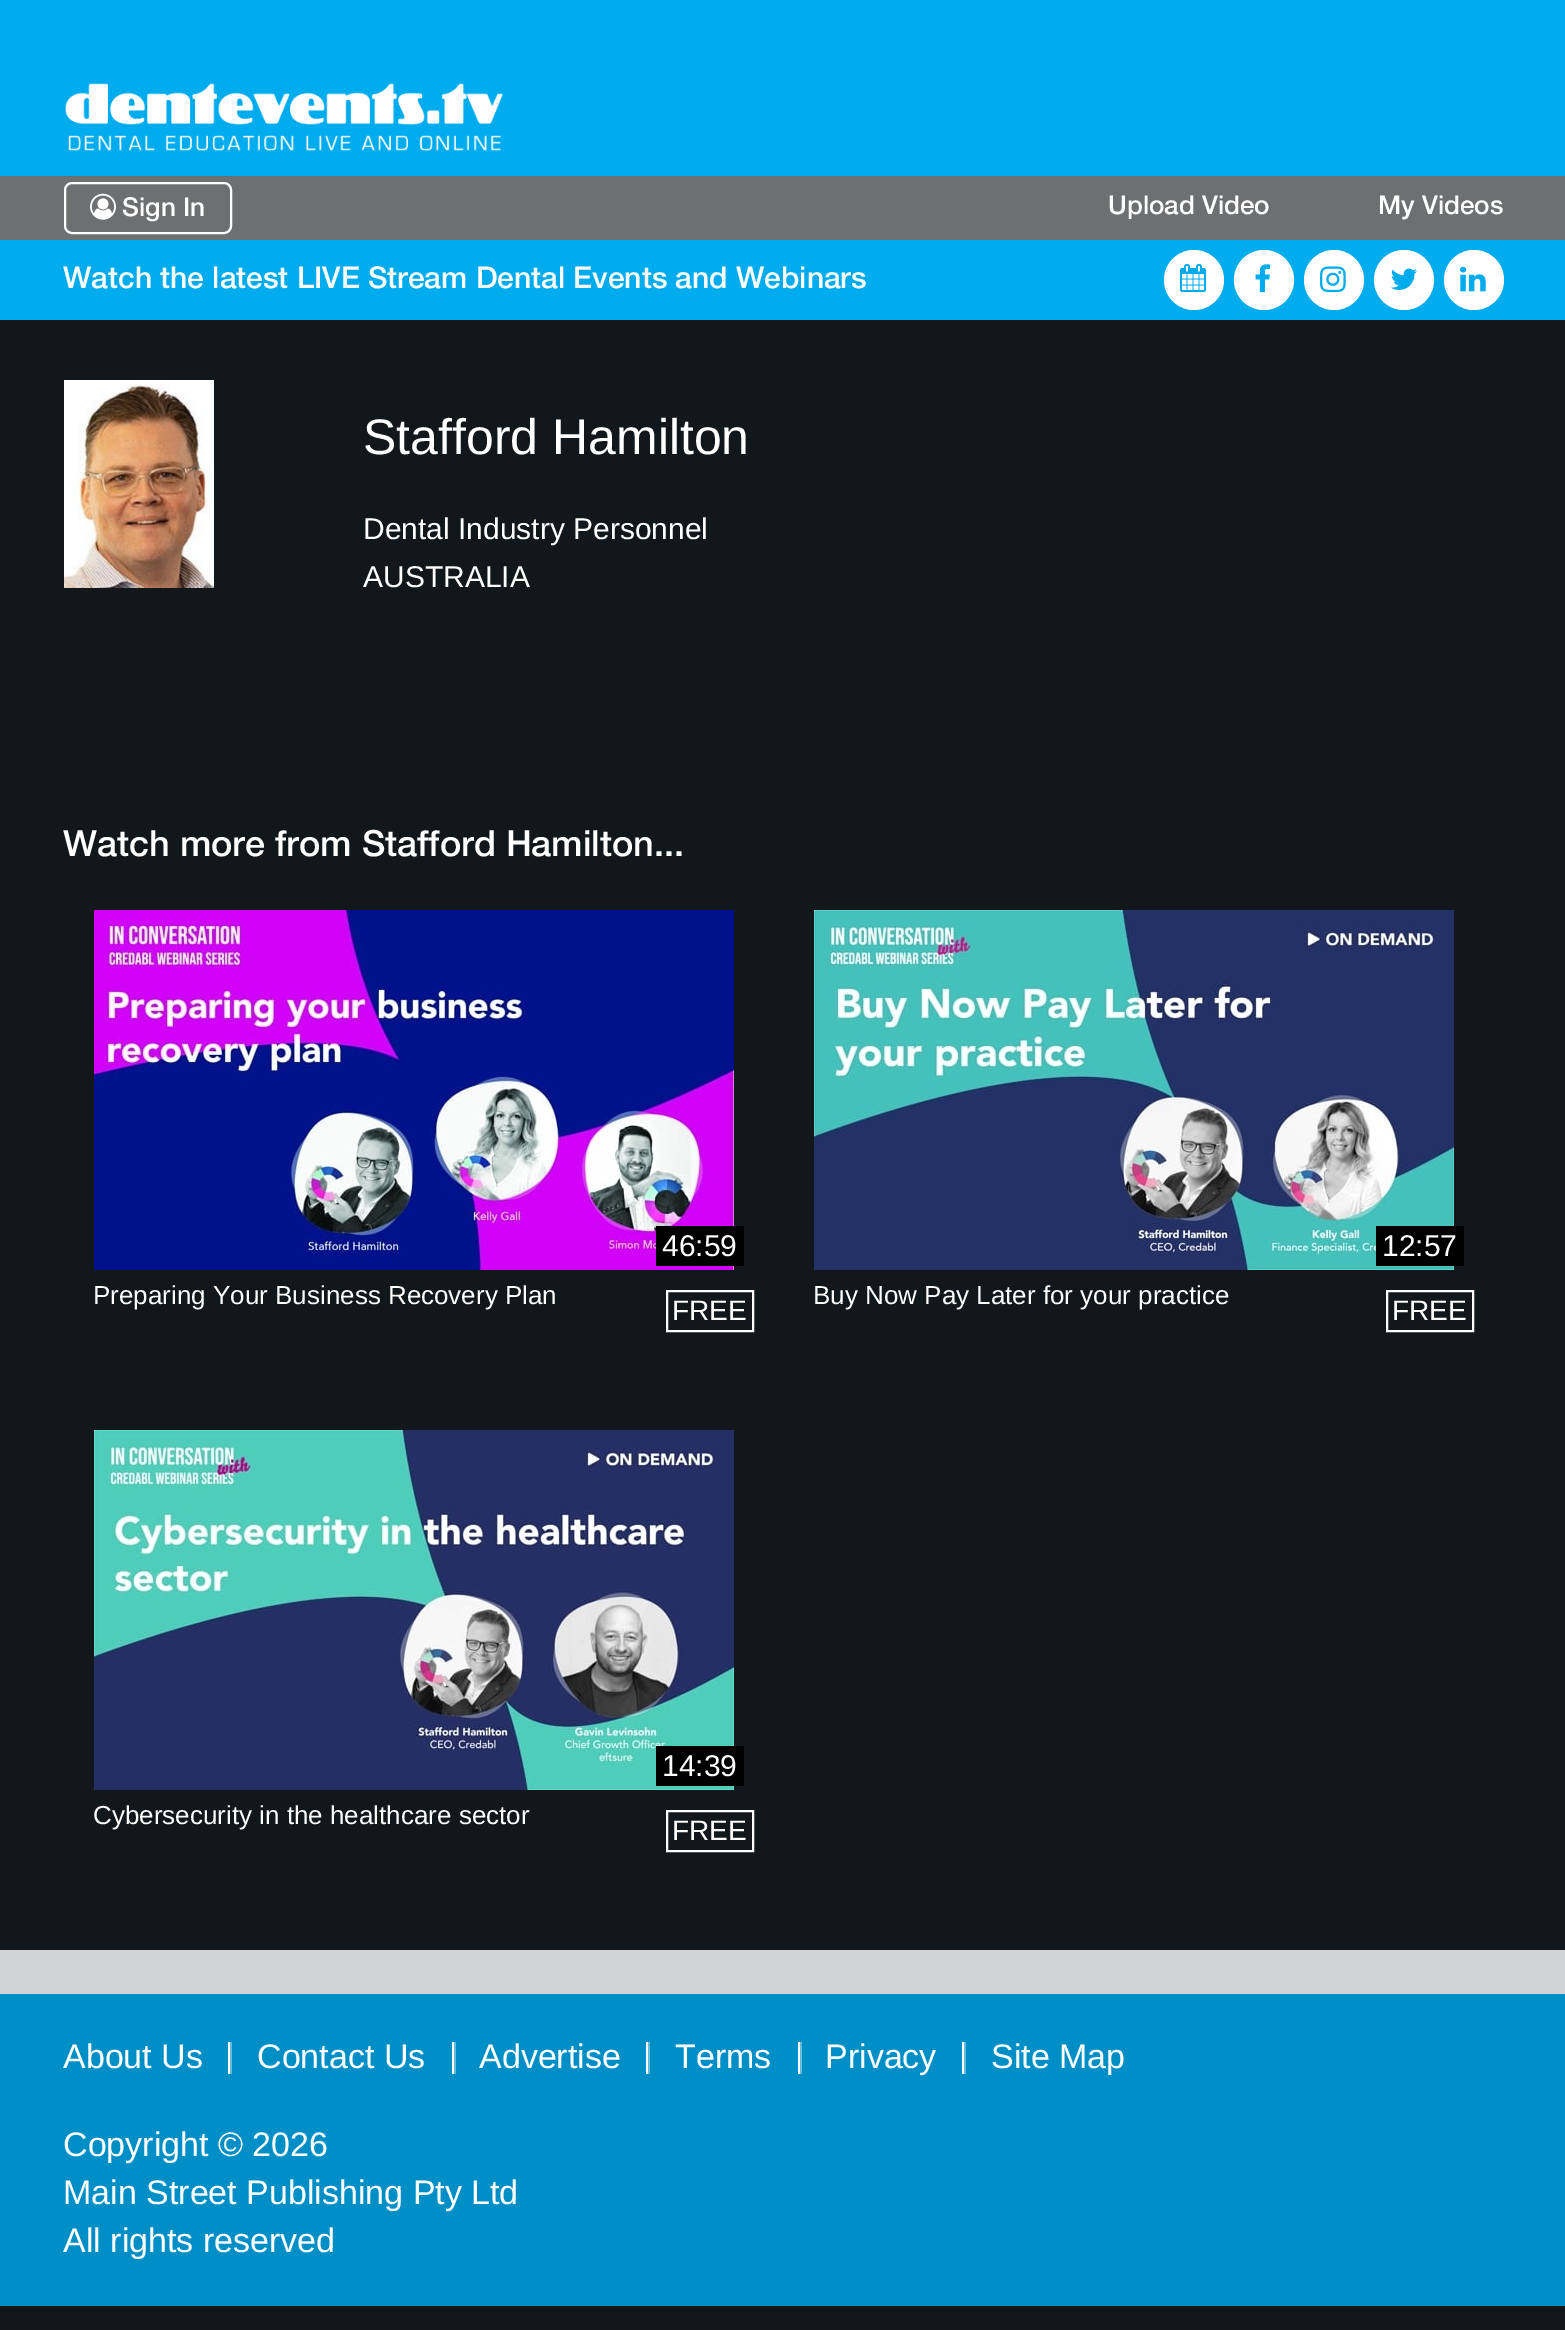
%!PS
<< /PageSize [1565 2330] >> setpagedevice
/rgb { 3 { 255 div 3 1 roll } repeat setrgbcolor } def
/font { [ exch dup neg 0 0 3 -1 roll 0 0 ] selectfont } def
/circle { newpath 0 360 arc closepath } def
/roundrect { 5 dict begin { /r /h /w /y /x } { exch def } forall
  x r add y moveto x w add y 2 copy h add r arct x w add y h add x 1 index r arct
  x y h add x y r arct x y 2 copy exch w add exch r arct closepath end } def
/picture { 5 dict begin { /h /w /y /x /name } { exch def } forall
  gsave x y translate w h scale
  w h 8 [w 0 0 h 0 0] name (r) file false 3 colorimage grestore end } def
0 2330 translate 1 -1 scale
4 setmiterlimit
18 23 27 rgb
0 0 1565 2330 rectfill
0 172 237 rgb
0 0 1565 176 rectfill
(img/1.rgb) 65 83 438 68 picture
109 111 113 rgb
0 176 1565 64 rectfill
255 255 255 rgb
2 setlinewidth
65 183 166 50 7 roundrect stroke
(img/2.rgb) 90 193 26 27 picture
0 172 237 rgb
0 240 1565 80 rectfill
255 255 255 rgb
1194 280 30 circle fill
(img/3.rgb) 1180 264 26 28 picture
1264 280 30 circle fill
(img/4.rgb) 1255 264 16 29 picture
1334 280 30 circle fill
(img/5.rgb) 1320 266 26 27 picture
1404 280 30 circle fill
(img/6.rgb) 1391 268 26 22 picture
1474 280 30 circle fill
(img/7.rgb) 1460 266 26 26 picture
(img/8.rgb) 64 380 150 208 picture
(img/9.rgb) 94 910 640 360 picture
0 0 0 rgb
656 1226 88 40 rectfill
255 255 255 rgb
667 1291 86 40 rectstroke
(img/10.rgb) 814 910 640 360 picture
0 0 0 rgb
1376 1226 88 40 rectfill
255 255 255 rgb
1387 1291 86 40 rectstroke
(img/11.rgb) 94 1430 640 360 picture
0 0 0 rgb
656 1746 88 40 rectfill
255 255 255 rgb
667 1811 86 40 rectstroke
[
  [0 1994 1565 312 0 142 199]
  [0 1950 1565 44 209 211 213]
  [230 2042 2 32 102 187 221]
  [228 2042 2 32 255 255 255]
  [454 2042 2 32 102 187 221]
  [452 2042 2 32 255 255 255]
  [648 2042 2 32 102 187 221]
  [646 2042 2 32 255 255 255]
  [800 2042 2 32 102 187 221]
  [798 2042 2 32 255 255 255]
  [964 2042 2 32 102 187 221]
  [962 2042 2 32 255 255 255]
] { aload pop rgb rectfill } forall
/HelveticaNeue-Medium 26 font
[
  [(Sign In) 122 216]
  [(Upload Video) 1108 214]
  [(My Videos) 1378 214]
] { aload pop moveto show } forall
/HelveticaNeue-Medium 30 font
63 288 moveto (Watch the latest LIVE Stream Dental Events and Webinars) show
/LiberationSans-Regular 50 font
363 454 moveto (Stafford Hamilton) show
/LiberationSans-Regular 30 font
363 539 moveto (Dental Industry Personnel) show
363 587 moveto (AUSTRALIA) show
/HelveticaNeue-Medium 36 font
63 856 moveto (Watch more from Stafford Hamilton...) show
/LiberationSans-Regular 30 font
662 1256 moveto (46:59) show
/LiberationSans-Regular 26 font
93 1304 moveto (Preparing Your Business Recovery Plan) show
/LiberationSans-Regular 28 font
672 1320 moveto (FREE) show
/LiberationSans-Regular 30 font
1382 1256 moveto (12:57) show
/LiberationSans-Regular 26 font
813 1304 moveto (Buy Now Pay Later for your practice) show
/LiberationSans-Regular 28 font
1392 1320 moveto (FREE) show
/LiberationSans-Regular 30 font
662 1776 moveto (14:39) show
/LiberationSans-Regular 26 font
93 1824 moveto (Cybersecurity in the healthcare sector) show
/LiberationSans-Regular 28 font
672 1840 moveto (FREE) show
/LiberationSans-Regular 34 font
[
  [(About Us) 63 2068]
  [(Contact Us) 257 2068]
  [(Advertise) 479 2068]
  [(Terms) 675 2068]
  [(Privacy) 825 2068]
  [(Site Map) 991 2068]
  [(Copyright © 2026) 63 2156]
  [(Main Street Publishing Pty Ltd) 63 2204]
  [(All rights reserved) 63 2252]
] { aload pop moveto show } forall
showpage
